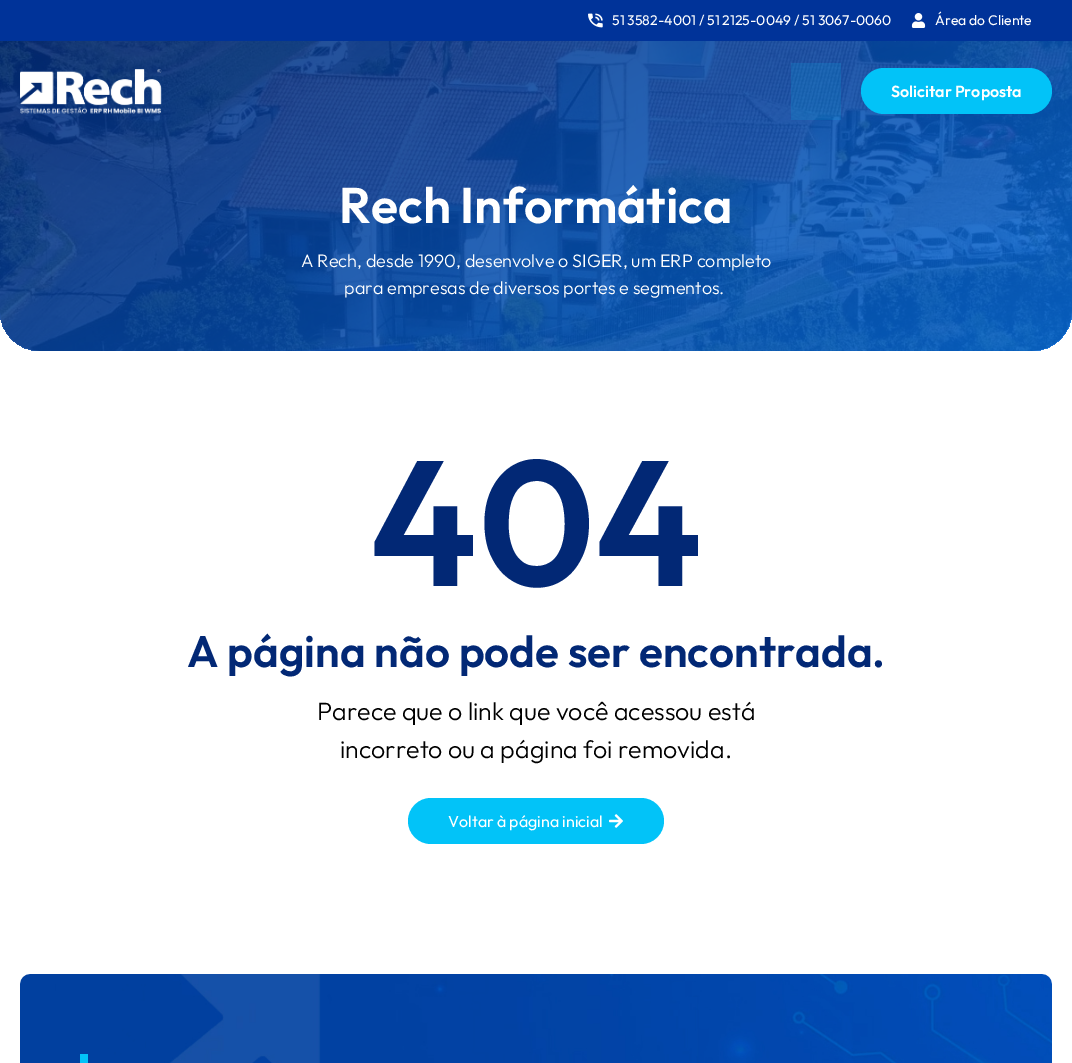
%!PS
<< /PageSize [1072 1063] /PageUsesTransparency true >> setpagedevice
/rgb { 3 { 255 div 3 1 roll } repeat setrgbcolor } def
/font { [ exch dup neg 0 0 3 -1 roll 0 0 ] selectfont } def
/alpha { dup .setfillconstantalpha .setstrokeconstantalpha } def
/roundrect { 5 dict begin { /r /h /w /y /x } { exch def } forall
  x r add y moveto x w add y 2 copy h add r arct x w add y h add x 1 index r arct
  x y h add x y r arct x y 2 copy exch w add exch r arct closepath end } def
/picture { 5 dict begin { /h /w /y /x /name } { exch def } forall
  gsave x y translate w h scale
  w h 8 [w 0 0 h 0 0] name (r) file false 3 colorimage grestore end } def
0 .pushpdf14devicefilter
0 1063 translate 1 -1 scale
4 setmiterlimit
255 255 255 rgb
0 0 1072 1063 rectfill
(img/4.rgb) 0 41 1072 310 picture
0.87 alpha
gsave 0 1 moveto 1072 1 lineto 1072 311 lineto 1072 333 1054 351 1032 351 curveto 40 351 lineto 18 351 0 333 0 311 curveto closepath clip newpath
<< /ShadingType 2 /ColorSpace /DeviceRGB /Coords [336 -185 736 537] /Extend [true true] /Function << /FunctionType 2 /Domain [0 1] /C0 [0.008 0.157 0.459] /C1 [0.031 0.416 0.847] /N 1 >> >> shfill grestore
1 alpha
0 51 153 rgb
0 0 1072 41 rectfill
(img/1.rgb) 588 13 15 15 picture
(img/2.rgb) 911 13 15 15 picture
(img/3.rgb) 20 69 142 45 picture
0.15 alpha
2 195 248 rgb
791 63 50 57 rectfill
1 alpha
861 68 191 46 23 roundrect fill
408 798 256 46 23 roundrect fill
(img/5.rgb) 609 814 14 14 picture
(img/6.rgb) 20 974 1032 89 picture
80 1054 8 9 rectfill
/Outfit-Regular 14 font
255 255 255 rgb
612 25 moveto (51 3582-4001 / 51 2125-0049 / 51 3067-0060) show
935 25 moveto (Área do Cliente) show
/Outfit-SemiBold 16 font
891 97 moveto (Solicitar Proposta) show
/Outfit-SemiBold 50 font
339 223 moveto (Rech Informática) show
/Outfit-Light 18 font
301 267 moveto (A Rech, desde 1990, desenvolve o SIGER, um ERP completo) show
344 294 moveto (para empresas de diversos portes e segmentos.) show
/Outfit-SemiBold 178 font
2 40 117 rgb
370 586 moveto (404) show
/Outfit-SemiBold 44 font
187 667 moveto (A página não pode ser encontrada.) show
/Outfit-Light 25 font
0 0 0 rgb
317 720 moveto (Parece que o link que você acessou está) show
340 758 moveto (incorreto ou a página foi removida.) show
/Outfit-Regular 16 font
255 255 255 rgb
448 827 moveto (Voltar à página inicial) show
.poppdf14devicefilter showpage
